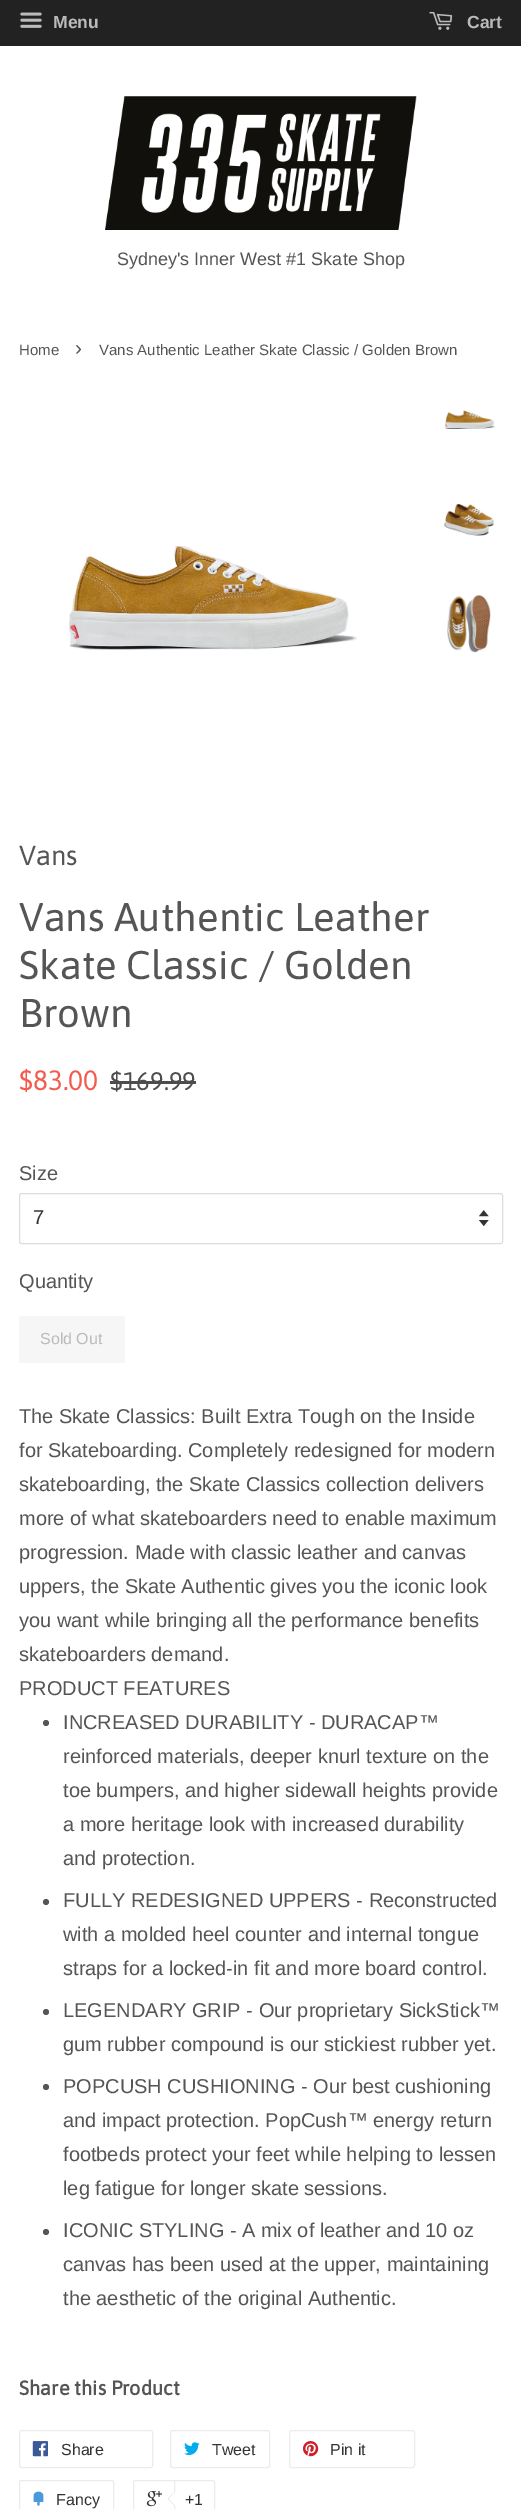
%!PS
<< /PageSize [521 2509] >> setpagedevice
/rgb { 3 { 255 div 3 1 roll } repeat setrgbcolor } def
/font { [ exch dup neg 0 0 3 -1 roll 0 0 ] selectfont } def
/circle { newpath 0 360 arc closepath } def
/roundrect { 5 dict begin { /r /h /w /y /x } { exch def } forall
  x r add y moveto x w add y 2 copy h add r arct x w add y h add x 1 index r arct
  x y h add x y r arct x y 2 copy exch w add exch r arct closepath end } def
/picture { 5 dict begin { /h /w /y /x /name } { exch def } forall
  gsave x y translate w h scale
  w h 8 [w 0 0 h 0 0] name (r) file false 3 colorimage grestore end } def
0 2509 translate 1 -1 scale
4 setmiterlimit
255 255 255 rgb
0 0 521 2509 rectfill
34 34 34 rgb
0 0 521 46 rectfill
(img/1.rgb) 20 12 22 16 picture
(img/2.rgb) 429 11 24 19 picture
(img/3.rgb) 105 96 312 134 picture
(img/4.rgb) 69 546 288 104 picture
(img/5.rgb) 445 410 51 19 picture
(img/6.rgb) 444 504 50 32 picture
(img/7.rgb) 447 595 44 58 picture
77 77 77 rgb
110 1081 86 3 rectfill
(img/8.rgb) 479 1210 10 16 picture
221 221 221 rgb
19.5 1193.5 483 50 2 roundrect stroke
246 246 246 rgb
19 1316 106 47 2.5 roundrect fill
85 85 85 rgb
46 1723 3 circle fill
46 1902 3 circle fill
46 2012 3 circle fill
46 2087 3 circle fill
46 2232 3 circle fill
236 236 236 rgb
19.5 2430.5 133 37 2 roundrect stroke
(img/9.rgb) 32 2441 16 16 picture
170.5 2430.5 99 37 2 roundrect stroke
(img/10.rgb) 184 2442 16 13 picture
289.5 2430.5 125 37 2 roundrect stroke
(img/11.rgb) 303 2441 16 16 picture
19.5 2480.5 94 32 2 roundrect stroke
(img/12.rgb) 33 2491 11 15 picture
133.5 2480.5 80 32 2 roundrect stroke
(img/13.rgb) 146 2491 16 16 picture
255 255 255 rgb
174.5 2480.5 moveto 212.5 2480.5 lineto 213.5 2480.5 214.5 2481.5 214.5 2482.5 curveto 214.5 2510.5 lineto 214.5 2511.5 213.5 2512.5 212.5 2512.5 curveto 174.5 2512.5 lineto closepath gsave fill grestore
236 236 236 rgb
stroke
175 2491 moveto 175 2506 lineto 167.5 2499 lineto closepath fill
255 255 255 rgb
176 2491 moveto 176 2506 lineto 169 2499 lineto closepath fill
/LiberationSans-Bold 17.5 font
187 187 187 rgb
53 28 moveto (Menu) show
467 28 moveto (Cart) show
/LiberationSans-Regular 18 font
85 85 85 rgb
117 265 moveto (Sydney's Inner West #1 Skate Shop) show
/LiberationSans-Regular 15 font
19 355 moveto (Home) show
/LiberationSans-Regular 21 font
75 355 moveto (›) show
/LiberationSans-Regular 15 font
99 355 moveto (Vans Authentic Leather Skate Classic / Golden Brown) show
/Asap-Regular 27.5 font
19 865 moveto (Vans) show
/Asap-Regular 40 font
[
  [(Vans Authentic Leather) 19 931]
  [(Skate Classic / Golden) 19 979]
  [(Brown) 19 1027]
] { aload pop moveto show } forall
/Asap-Regular 28 font
244 91 79 rgb
19 1090 moveto ($83.00) show
/Asap-Regular 25.5 font
77 77 77 rgb
110 1090 moveto ($169.99) show
/LiberationSans-Regular 20 font
85 85 85 rgb
19 1180 moveto (Size) show
51 51 51 rgb
33 1224 moveto (7) show
85 85 85 rgb
19 1288 moveto (Quantity) show
/LiberationSans-Regular 16 font
187 187 187 rgb
40 1344 moveto (Sold Out) show
/LiberationSans-Regular 20 font
85 85 85 rgb
[
  [(The Skate Classics: Built Extra Tough on the Inside) 19 1423]
  [(for Skateboarding. Completely redesigned for modern) 19 1457]
  [(skateboarding, the Skate Classics collection delivers) 19 1491]
  [(more of what skateboarders need to enable maximum) 19 1525]
  [(progression. Made with classic leather and canvas) 19 1559]
  [(uppers, the Skate Authentic gives you the iconic look) 19 1593]
  [(you want while bringing all the performance benefits) 19 1627]
  [(skateboarders demand.) 19 1661]
  [(PRODUCT FEATURES) 19 1695]
  [(INCREASED DURABILITY - DURACAP™) 63 1729]
  [(reinforced materials, deeper knurl texture on the) 63 1763]
  [(toe bumpers, and higher sidewall heights provide) 63 1797]
  [(a more heritage look with increased durability) 63 1831]
  [(and protection.) 63 1865]
  [(FULLY REDESIGNED UPPERS - Reconstructed) 63 1907]
  [(with a molded heel counter and internal tongue) 63 1941]
  [(straps for a locked-in fit and more board control.) 63 1975]
  [(LEGENDARY GRIP - Our proprietary SickStick™) 63 2017]
  [(gum rubber compound is our stickiest rubber yet.) 63 2051]
  [(POPCUSH CUSHIONING - Our best cushioning) 63 2093]
  [(and impact protection. PopCush™ energy return) 63 2127]
  [(footbeds protect your feet while helping to lessen) 63 2161]
  [(leg fatigue for longer skate sessions.) 63 2195]
  [(ICONIC STYLING - A mix of leather and 10 oz) 63 2237]
  [(canvas has been used at the upper, maintaining) 63 2271]
  [(the aesthetic of the original Authentic.) 63 2305]
] { aload pop moveto show } forall
/Asap-Bold 20 font
19 2395 moveto (Share this Product) show
/LiberationSans-Regular 16 font
51 51 51 rgb
[
  [(Share) 61 2455]
  [(Tweet) 212 2455]
  [(Pin it) 330 2455]
  [(Fancy) 56 2505]
  [(+1) 185 2505]
] { aload pop moveto show } forall
showpage
